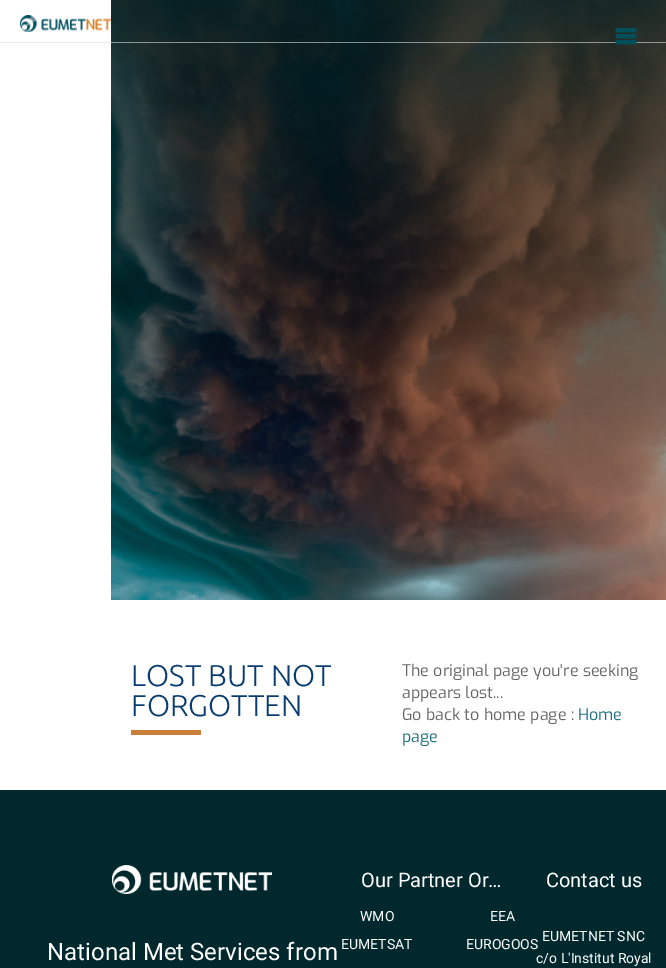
%!PS
<< /PageSize [666 968] /PageUsesTransparency true >> setpagedevice
/rgb { 3 { 255 div 3 1 roll } repeat setrgbcolor } def
/font { [ exch dup neg 0 0 3 -1 roll 0 0 ] selectfont } def
/alpha { dup .setfillconstantalpha .setstrokeconstantalpha } def
/picture { 5 dict begin { /h /w /y /x /name } { exch def } forall
  gsave x y translate w h scale
  w h 8 [w 0 0 h 0 0] name (r) file false 3 colorimage grestore end } def
0 .pushpdf14devicefilter
0 968 translate 1 -1 scale
4 setmiterlimit
255 255 255 rgb
0 0 666 968 rectfill
(img/3.rgb) 111 0 555 600 picture
0.2 alpha
0 40 45 rgb
0 42 666 1 rectfill
1 alpha
(img/1.rgb) 20 15 91 17 picture
0.5 alpha
255 255 255 rgb
0 42 666 1 rectfill
1 alpha
(img/2.rgb) 615 28 22 17 picture
201 127 58 rgb
131 730 70 5 rectfill
0 40 45 rgb
0 790 666 178 rectfill
(img/4.rgb) 112 865 160 29 picture
/Ubuntu-Light 30 font
9 61 113 rgb
131 686 moveto (LOST BUT NOT) show
131 716 moveto (FORGOTTEN) show
/Exo-Regular 16 font
101 101 101 rgb
[
  [(The original page you're seeking) 402 676]
  [(appears lost...) 402 698]
  [(Go back to home page :) 402 720]
] { aload pop moveto show } forall
30 109 129 rgb
578 720 moveto (Home) show
402 742 moveto (page) show
/Heebo-Regular 24 font
255 255 255 rgb
47 960 moveto (National Met Services from) show
/Heebo-Regular 20 font
361 887 moveto (Our Partner Or…) show
/Heebo-Regular 14 font
[
  [(WMO) 360 921]
  [(EUMETSAT) 341 949]
  [(EEA) 490 921]
  [(EUROGOOS) 466 949]
] { aload pop moveto show } forall
/Heebo-Regular 20 font
546 887 moveto (Contact us) show
/Heebo-Regular 14 font
542 941 moveto (EUMETNET SNC) show
536 963 moveto (c/o L'Institut Royal) show
.poppdf14devicefilter showpage
